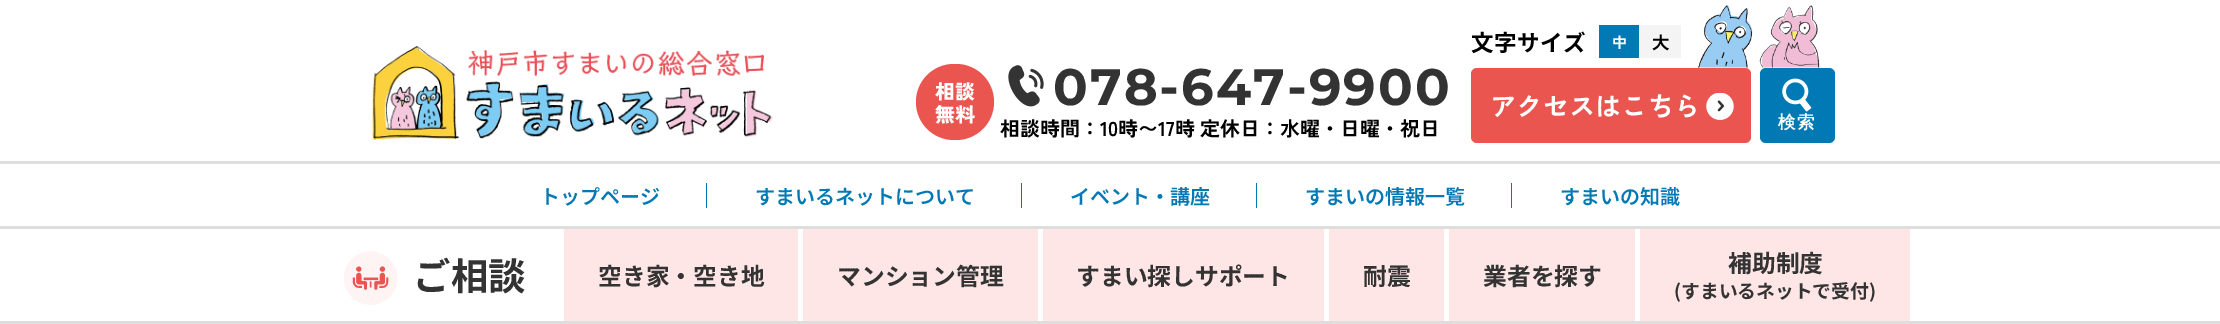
%!PS
<< /PageSize [2220 324] >> setpagedevice
/rgb { 3 { 255 div 3 1 roll } repeat setrgbcolor } def
/font { [ exch dup neg 0 0 3 -1 roll 0 0 ] selectfont } def
/roundrect { 5 dict begin { /r /h /w /y /x } { exch def } forall
  x r add y moveto x w add y 2 copy h add r arct x w add y h add x 1 index r arct
  x y h add x y r arct x y 2 copy exch w add exch r arct closepath end } def
/picture { 5 dict begin { /h /w /y /x /name } { exch def } forall
  gsave x y translate w h scale
  w h 8 [w 0 0 h 0 0] name (r) file false 3 colorimage grestore end } def
0 324 translate 1 -1 scale
4 setmiterlimit
255 255 255 rgb
0 0 2220 324 rectfill
222 222 222 rgb
0 161 2220 3 rectfill
(img/1.rgb) 372 46 401 94 picture
234 85 80 rgb
916 64 78 76 38 roundrect fill
(img/2.rgb) 1008 65 36 42 picture
0 121 181 rgb
1599 25 40 33 rectfill
244 244 244 rgb
1639 25 42 33 rectfill
(img/3.rgb) 1698 5 122 63 picture
234 85 80 rgb
1471 68 280 75 6 roundrect fill
(img/4.rgb) 1706 93 28 27 picture
0 121 181 rgb
1760 68 75 75 6 roundrect fill
(img/5.rgb) 1782 78 30 34 picture
[
  [706 183 1 25 0 121 181]
  [1021 183 1 25 0 121 181]
  [1256 183 1 25 0 121 181]
  [1511 183 1 25 0 121 181]
  [0 226 2220 3 222 222 222]
  [0 321 2220 3 222 222 222]
] { aload pop rgb rectfill } forall
(img/6.rgb) 344 251 54 54 picture
[
  [564 229 234 92 255 230 230]
  [803 229 235 92 255 230 230]
  [1043 229 281 92 255 230 230]
  [1329 229 115 92 255 230 230]
  [1449 229 186 92 255 230 230]
  [1640 229 270 92 255 230 230]
] { aload pop rgb rectfill } forall
/ZenKakuGothicNew-Black 20 font
255 255 255 rgb
935 99 moveto (相談) show
935 122 moveto (無料) show
/Montserrat-Bold 51.25 font
51 51 51 rgb
1053 105 moveto 2 0 (078-647-9900) ashow
/ZenKakuGothicNew-Bold 20 font
0 0 0 rgb
1000 136 moveto (相談時間：10時〜17時 定休日：水曜・日曜・祝日) show
/NotoSansJP-Bold 22.5 font
1471 51 moveto 0.5 0 (文字サイズ) ashow
/ZenKakuGothicNew-Bold 15 font
255 255 255 rgb
1612 48 moveto (中) show
/ZenKakuGothicNew-Bold 17.5 font
0 0 0 rgb
1652 49 moveto (大) show
/ZenKakuGothicNew-Bold 26.25 font
255 255 255 rgb
1490 116 moveto (アクセスはこちら) show
/WenQuanYiZenHei-Bold 17.5 font
1778 128 moveto 1 0 (検索) ashow
/NotoSansJP-SemiBold 20 font
0 121 181 rgb
[
  [(トップページ) 540 204]
  [(すまいるネットについて) 755 204]
  [(イベント・講座) 1070 204]
  [(すまいの情報一覧) 1305 204]
  [(すまいの知識) 1560 204]
] { aload pop moveto show } forall
/NotoSansJP-Bold 37.5 font
51 51 51 rgb
413 290 moveto (ご相談) show
/NotoSansJP-Bold 23.75 font
[
  [(空き家・空き地) 598 285]
  [(マンション管理) 837 285]
  [(すまい探しサポート) 1076 285]
  [(耐震) 1363 285]
  [(業者を探す) 1483 285]
  [(補助制度) 1728 272]
] { aload pop moveto show } forall
/NotoSansJP-Bold 18.75 font
1674 298 moveto (\(すまいるネットで受付\)) show
showpage
